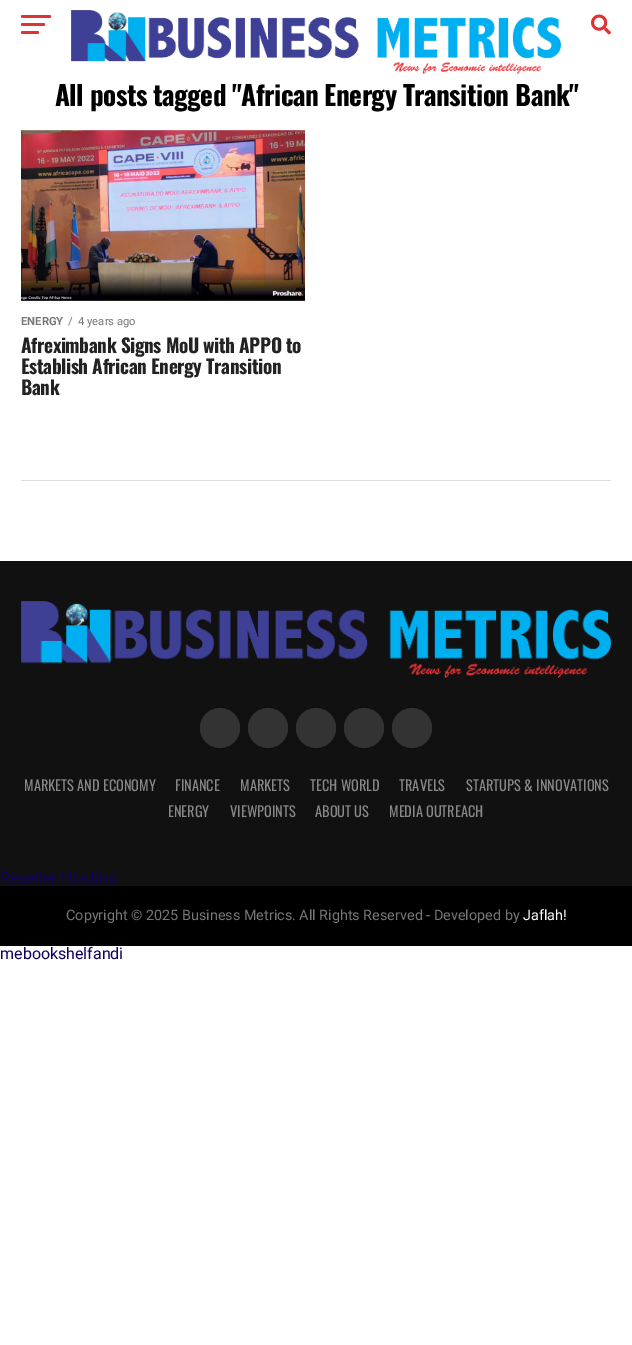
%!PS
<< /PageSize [632 1345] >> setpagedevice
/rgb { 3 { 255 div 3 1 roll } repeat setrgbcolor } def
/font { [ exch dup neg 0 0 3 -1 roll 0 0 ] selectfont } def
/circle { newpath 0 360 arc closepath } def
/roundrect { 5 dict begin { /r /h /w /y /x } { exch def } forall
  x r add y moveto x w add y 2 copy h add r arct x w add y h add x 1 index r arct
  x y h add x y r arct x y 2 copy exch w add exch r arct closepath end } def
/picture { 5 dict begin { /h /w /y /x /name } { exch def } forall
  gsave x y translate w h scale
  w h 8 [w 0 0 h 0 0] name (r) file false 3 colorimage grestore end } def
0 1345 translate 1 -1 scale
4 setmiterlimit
255 255 255 rgb
0 0 632 1345 rectfill
221 51 51 rgb
21 15 30 3 1.5 roundrect fill
21 23 24 3 1.5 roundrect fill
21 31 18 3 1.5 roundrect fill
(img/1.rgb) 71 10 490 64 picture
(img/2.rgb) 591 14 20 21 picture
(img/3.rgb) 21 130 284 171 picture
221 221 221 rgb
21 480 590 1 rectfill
17 17 17 rgb
0 561 632 325 rectfill
(img/4.rgb) 21 601 590 77 picture
51 51 51 rgb
220 728 20 circle fill
268 728 20 circle fill
316 728 20 circle fill
364 728 20 circle fill
412 728 20 circle fill
/Oswald-Bold 27.25 font
0 0 0 rgb
55 106 moveto -0.55 0 (All posts tagged "African Energy Transition Bank") ashow
/Roboto-Bold 11.25 font
119 119 119 rgb
21 325 moveto (ENERGY) show
/Roboto-Regular 11.25 font
68 325 moveto (/) show
78 325 moveto (4 years ago) show
/Oswald-Bold 19.25 font
34 34 34 rgb
21 353 moveto -0.4 0 (Afreximbank Signs MoU with APPO to) ashow
21 374 moveto -0.4 0 (Establish African Energy Transition) ashow
21 395 moveto -0.4 0 (Bank) ashow
/Oswald-Regular 14.4 font
136 136 136 rgb
[
  [(MARKETS AND ECONOMY) 24 791]
  [(FINANCE) 175 791]
  [(MARKETS) 240 791]
  [(TECH WORLD) 310 791]
  [(TRAVELS) 399 791]
  [(STARTUPS & INNOVATIONS) 466 791]
  [(ENERGY) 168 817]
  [(VIEWPOINTS) 230 817]
  [(ABOUT US) 315 817]
  [(MEDIA OUTREACH) 389 817]
] { aload pop moveto show } forall
/Roboto-Regular 16 font
17 0 94 rgb
0 883 moveto (Reseller Hosting) show
0 0 0 rgb
0 886 632 60 rectfill
/Roboto-Regular 14.4 font
119 119 119 rgb
66 920 moveto (Copyright © 2025 Business Metrics. All Rights Reserved - Developed by) show
255 255 255 rgb
523 920 moveto (Jaflah!) show
/Roboto-Regular 16 font
17 0 94 rgb
0 959 moveto (mebookshelfandi) show
showpage
